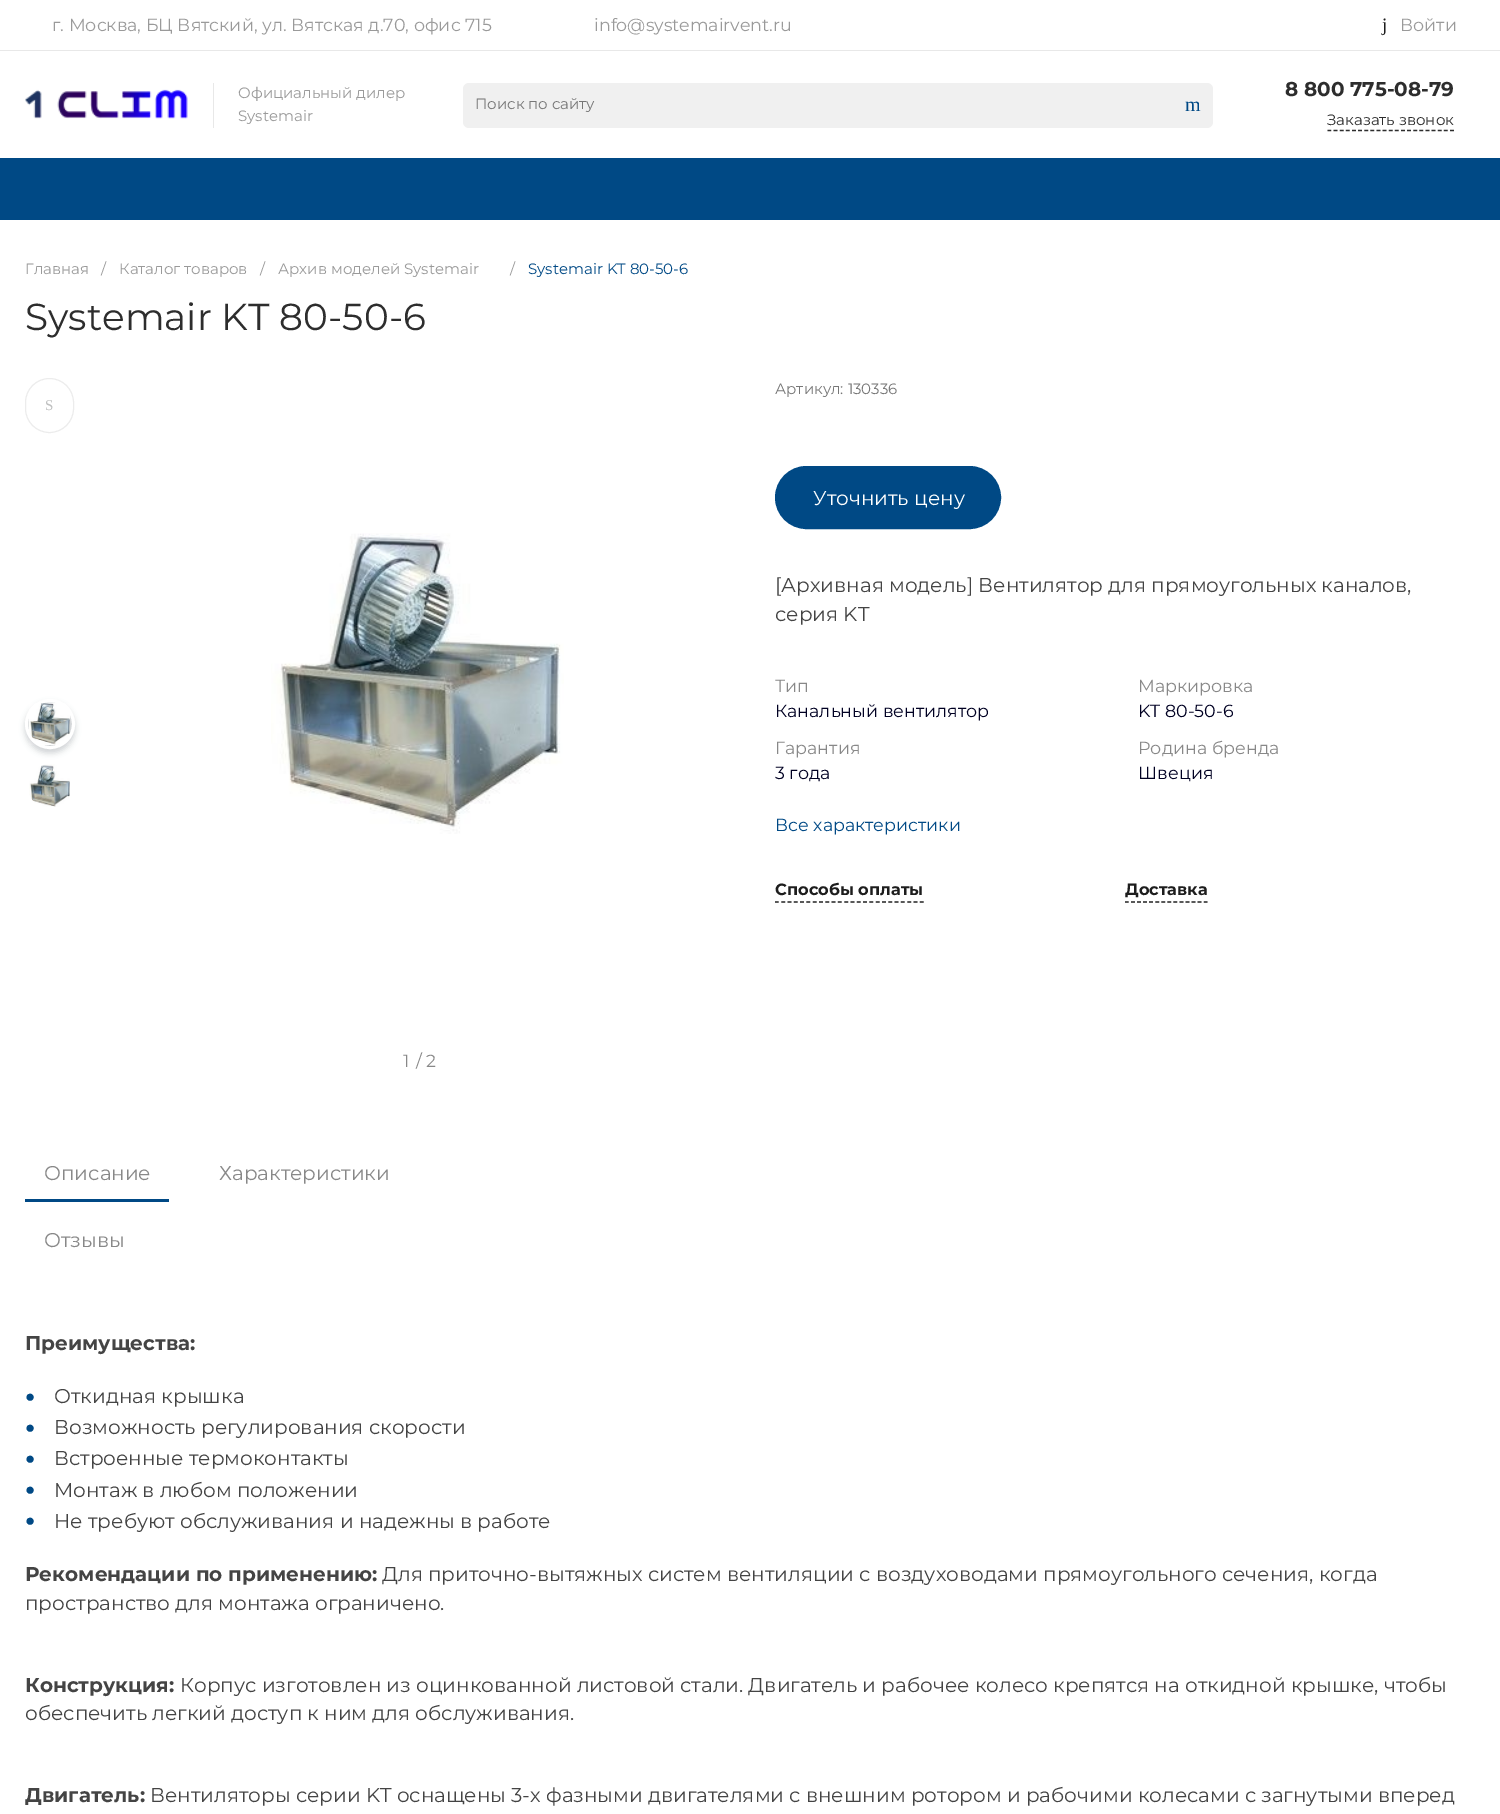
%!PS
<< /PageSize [1500 1814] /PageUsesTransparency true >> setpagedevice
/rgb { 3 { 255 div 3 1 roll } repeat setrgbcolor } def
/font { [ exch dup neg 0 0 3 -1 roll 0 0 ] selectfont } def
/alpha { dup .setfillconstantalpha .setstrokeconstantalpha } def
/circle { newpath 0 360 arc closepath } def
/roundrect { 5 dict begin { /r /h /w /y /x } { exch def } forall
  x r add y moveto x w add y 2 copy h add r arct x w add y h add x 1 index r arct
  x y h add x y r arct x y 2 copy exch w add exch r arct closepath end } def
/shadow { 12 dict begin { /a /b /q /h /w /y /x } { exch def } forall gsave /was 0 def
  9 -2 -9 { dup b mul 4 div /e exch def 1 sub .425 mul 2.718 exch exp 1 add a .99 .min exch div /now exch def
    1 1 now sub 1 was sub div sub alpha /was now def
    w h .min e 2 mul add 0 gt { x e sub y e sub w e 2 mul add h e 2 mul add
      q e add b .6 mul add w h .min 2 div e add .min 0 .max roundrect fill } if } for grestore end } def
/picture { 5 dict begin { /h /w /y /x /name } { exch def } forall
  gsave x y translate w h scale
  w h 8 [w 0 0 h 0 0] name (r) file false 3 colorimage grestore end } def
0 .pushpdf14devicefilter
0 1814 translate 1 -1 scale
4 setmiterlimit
255 255 255 rgb
0 0 1500 1814 rectfill
232 232 232 rgb
0 50 1500 1 rectfill
(img/1.rgb) 25 89 163 30 picture
213 83 1 45 rectfill
240 240 240 rgb
463 83 750 45 6 roundrect fill
45 45 45 rgb
1.2 setlinewidth
[3.75 2.38] 0 setdash
1327.5 130.5 moveto 1454 130.5 lineto stroke
0 73 133 rgb
0 158 1500 62 rectfill
236 236 236 rgb
1 setlinewidth
[] 0 setdash
25.5 378.5 48 54 24 roundrect stroke
126 131 140 rgb
25 703 50 50 25 3 0.35 shadow
255 255 255 rgb
3 setlinewidth
50 724 23.5 circle stroke
(img/2.rgb) 29 703 41 42 picture
(img/3.rgb) 29 764 41 43 picture
(img/4.rgb) 271 533 293 301 picture
0 73 133 rgb
776.5 467.5 223 60 30 roundrect gsave fill grestore
stroke
29 29 29 rgb
1.2 setlinewidth
[3.75 2.55] 0 setdash
775 902 moveto 924 902 lineto stroke
[3.75 2.31] 0 setdash
1125 902 moveto 1207.5 902 lineto stroke
0 73 133 rgb
25 1199 144 3 rectfill
/Montserrat-Regular 17.5 font
154 154 154 rgb
52 31 moveto (г. Москва, БЦ Вятский, ул. Вятская д.70, офис 715) show
594 31 moveto (info@systemairvent.ru) show
/LiberationSerif-Regular 19 font
29 29 29 rgb
1382 31 moveto (j) show
/Montserrat-Regular 17.5 font
154 154 154 rgb
1400 31 moveto (Войти) show
/Montserrat-Regular 15 font
238 98 moveto (Официальный дилер) show
238 121 moveto (Systemair) show
119 119 119 rgb
475 109 moveto (Поиск по сайту) show
/LiberationSerif-Regular 20 font
0 73 133 rgb
1185 111 moveto (m) show
/Montserrat-Bold 20 font
45 45 45 rgb
1285 96 moveto (8 800 775-08-79) show
/Montserrat-Regular 15 font
1327 125 moveto (Заказать звонок) show
154 154 154 rgb
[
  [(Главная) 25 274]
  [(/) 101 274]
  [(Каталог товаров) 119 274]
  [(/) 260 274]
  [(Архив моделей Systemair) 278 274]
  [(/) 510 274]
] { aload pop moveto show } forall
0 73 133 rgb
528 274 moveto (Systemair KT 80-50-6) show
/Montserrat-Regular 37.5 font
45 45 45 rgb
25 330 moveto (Systemair KT 80-50-6) show
/LiberationSerif-Regular 15 font
191 192 192 rgb
45 410 moveto (S) show
/Montserrat-Regular 17.5 font
136 136 136 rgb
403 1067 moveto (1) show
416 1067 moveto (/ 2) show
/Montserrat-Regular 15 font
119 119 119 rgb
775 394 moveto (Артикул: 130336) show
/Montserrat-Regular 20 font
255 255 255 rgb
813 505 moveto (Уточнить цену) show
68 68 68 rgb
775 592 moveto ([Архивная модель] Вентилятор для прямоугольных каналов,) show
775 621 moveto (серия KT) show
/Montserrat-Regular 17.5 font
136 136 136 rgb
775 692 moveto (Тип) show
0 0 34 rgb
775 717 moveto (Канальный вентилятор) show
136 136 136 rgb
1138 692 moveto (Маркировка) show
0 0 34 rgb
1138 717 moveto (KT 80-50-6) show
136 136 136 rgb
775 754 moveto (Гарантия) show
0 0 34 rgb
775 779 moveto (3 года) show
136 136 136 rgb
1138 754 moveto (Родина бренда) show
0 0 34 rgb
1138 779 moveto (Швеция) show
0 73 133 rgb
775 831 moveto (Все характеристики) show
/Montserrat-Bold 16.25 font
29 29 29 rgb
775 895 moveto (Способы оплаты) show
1125 895 moveto (Доставка) show
/Montserrat-Regular 20 font
136 136 136 rgb
[
  [(Описание) 44 1180]
  [(Характеристики) 219 1180]
  [(Отзывы) 44 1247]
] { aload pop moveto show } forall
/Montserrat-Bold 20 font
68 68 68 rgb
25 1350 moveto (Преимущества:) show
/LiberationSans-Regular 17 font
0 73 133 rgb
25 1402 moveto (●) show
/Montserrat-Regular 20 font
68 68 68 rgb
54 1403 moveto (Откидная крышка) show
/LiberationSans-Regular 17 font
0 73 133 rgb
25 1433 moveto (●) show
/Montserrat-Regular 20 font
68 68 68 rgb
54 1434 moveto (Возможность регулирования скорости) show
/LiberationSans-Regular 17 font
0 73 133 rgb
25 1464 moveto (●) show
/Montserrat-Regular 20 font
68 68 68 rgb
54 1465 moveto (Встроенные термоконтакты) show
/LiberationSans-Regular 17 font
0 73 133 rgb
25 1495 moveto (●) show
/Montserrat-Regular 20 font
68 68 68 rgb
54 1497 moveto (Монтаж в любом положении) show
/LiberationSans-Regular 17 font
0 73 133 rgb
25 1526 moveto (●) show
/Montserrat-Regular 20 font
68 68 68 rgb
54 1528 moveto (Не требуют обслуживания и надежны в работе) show
/Montserrat-Bold 20 font
25 1581 moveto (Рекомендации по применению:) show
/Montserrat-Regular 20 font
382 1581 moveto (Для приточно-вытяжных систем вентиляции с воздуховодами прямоугольного сечения, когда) show
25 1610 moveto (пространство для монтажа ограничено.) show
/Montserrat-Bold 20 font
25 1692 moveto (Конструкция:) show
/Montserrat-Regular 20 font
180 1692 moveto (Корпус изготовлен из оцинкованной листовой стали. Двигатель и рабочее колесо крепятся на откидной крышке, чтобы) show
25 1720 moveto (обеспечить легкий доступ к ним для обслуживания.) show
/Montserrat-Bold 20 font
25 1802 moveto (Двигатель:) show
/Montserrat-Regular 20 font
150 1802 moveto (Вентиляторы серии KT оснащены 3-х фазными двигателями с внешним ротором и рабочими колесами с загнутыми вперед) show
.poppdf14devicefilter showpage
